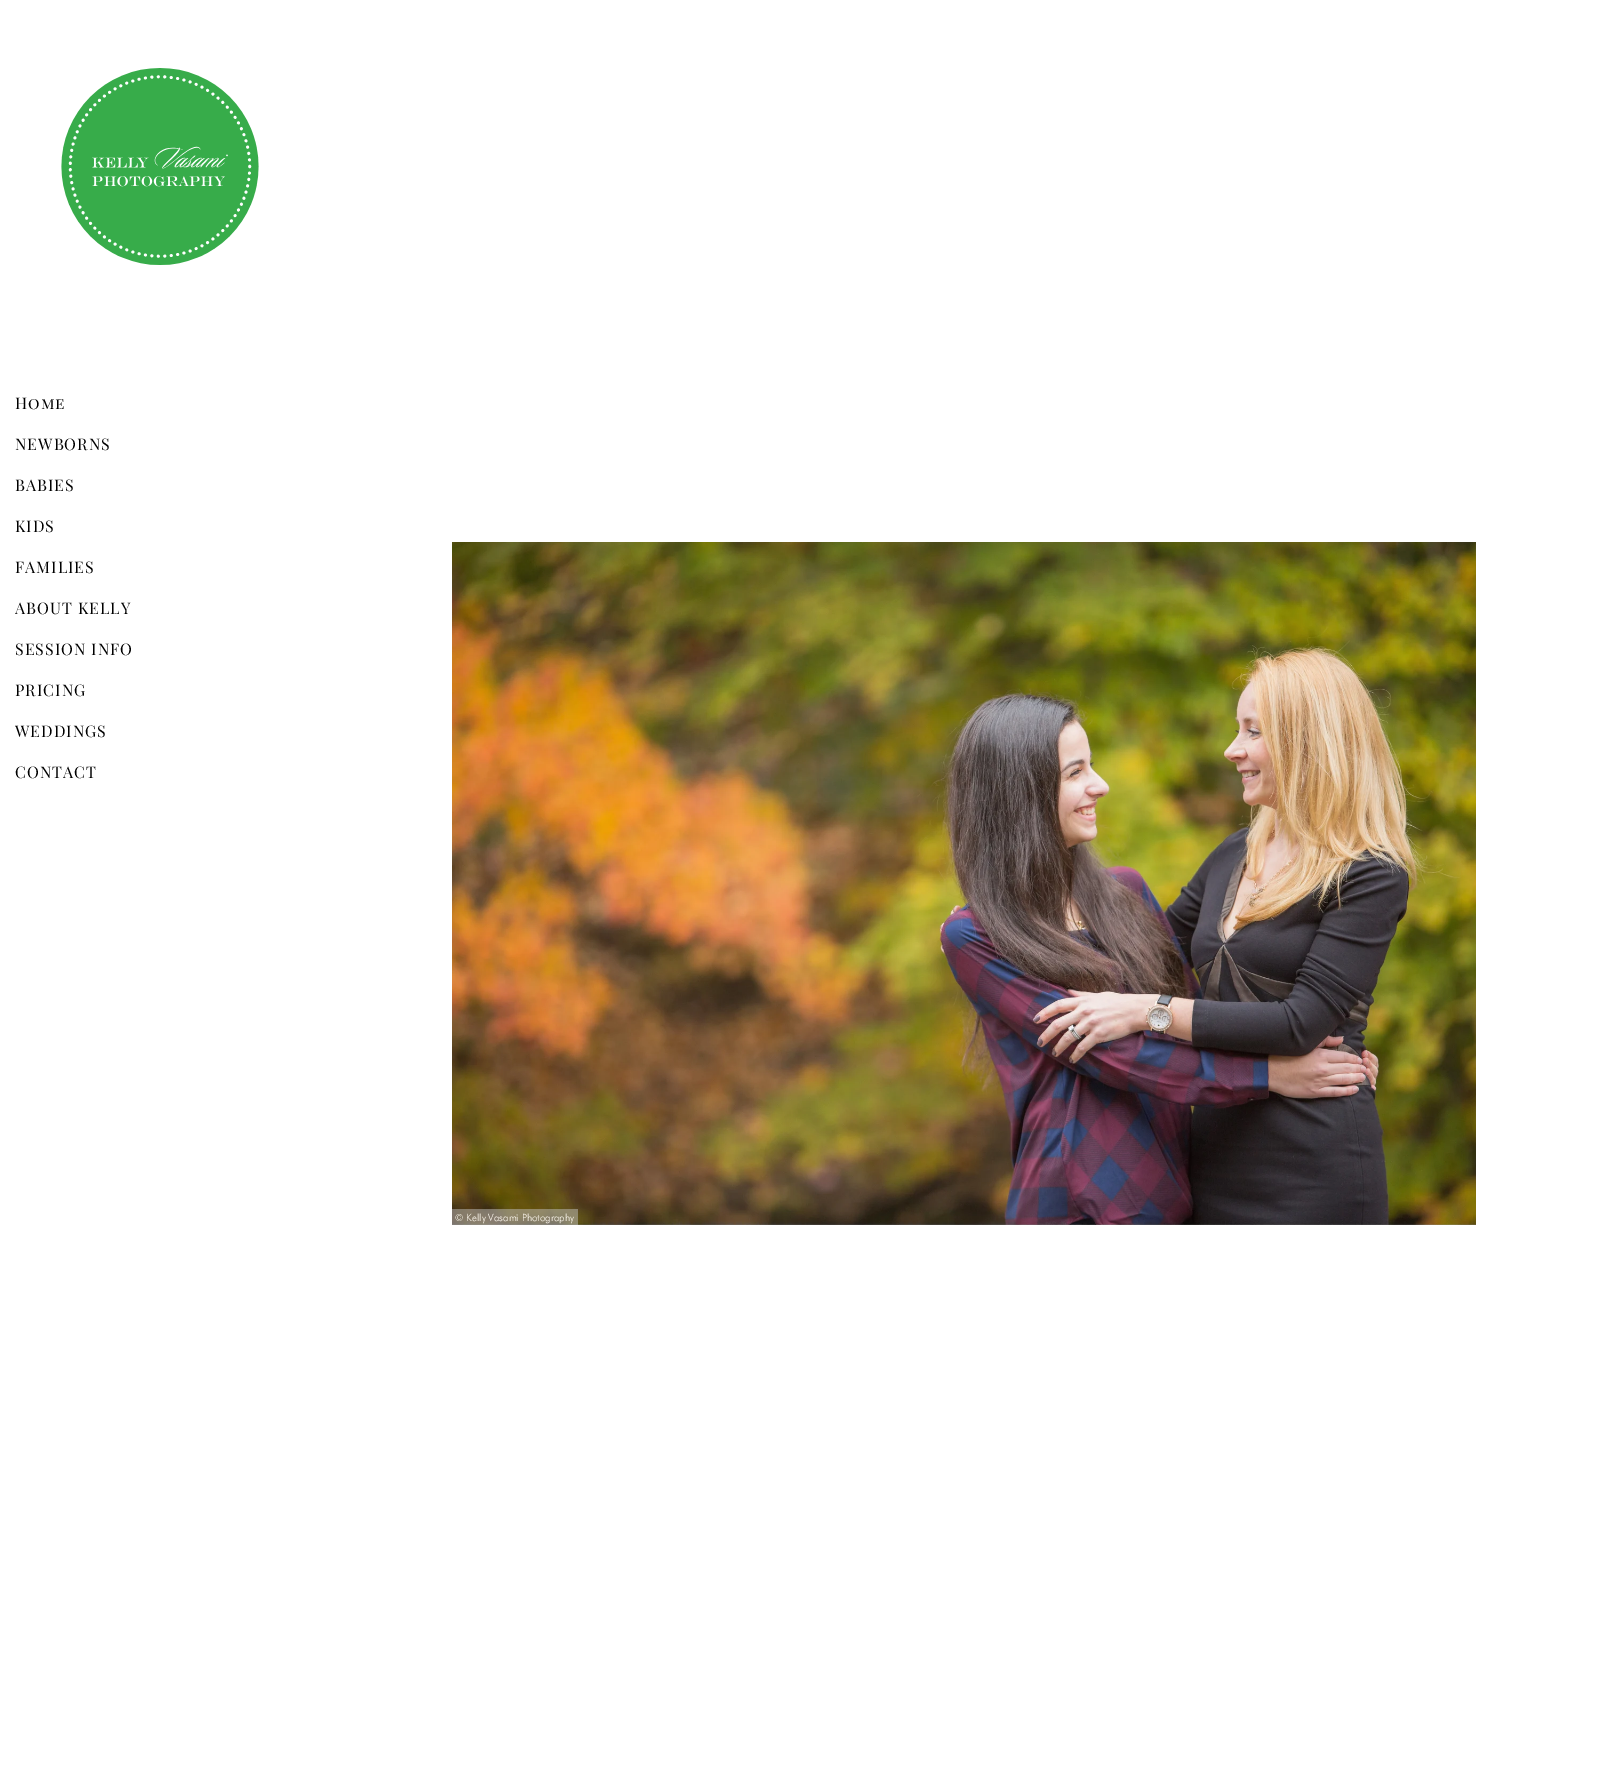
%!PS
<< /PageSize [1619 1766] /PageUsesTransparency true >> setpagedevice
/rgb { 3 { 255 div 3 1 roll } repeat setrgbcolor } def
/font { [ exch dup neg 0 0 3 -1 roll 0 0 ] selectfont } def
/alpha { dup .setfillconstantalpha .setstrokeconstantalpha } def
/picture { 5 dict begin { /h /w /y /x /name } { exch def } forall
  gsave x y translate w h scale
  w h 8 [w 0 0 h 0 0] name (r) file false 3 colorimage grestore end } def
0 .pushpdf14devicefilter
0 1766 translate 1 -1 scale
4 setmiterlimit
255 255 255 rgb
0 0 1619 1766 rectfill
(img/1.rgb) 61 68 198 197 picture
(img/2.rgb) 452 542 1024 683 picture
0.5 alpha
192 192 192 rgb
452 1209 126 16 rectfill
/PlayfairDisplaySC-Regular 16 font
1 alpha
0 0 0 rgb
15 409 moveto 1 0 (Home) ashow
15 450 moveto 1 0 (NEWBORNS) ashow
15 491 moveto 1 0 (BABIES) ashow
15 532 moveto 1 0 (KIDS) ashow
15 573 moveto 1 0 (FAMILIES) ashow
15 614 moveto 1 0 (ABOUT KELLY) ashow
15 655 moveto 1 0 (SESSION INFO) ashow
15 696 moveto 1 0 (PRICING) ashow
15 737 moveto 1 0 (WEDDINGS) ashow
15 778 moveto 1 0 (CONTACT) ashow
/Futura-Black 10 font
255 250 240 rgb
455 1221 moveto (© Kelly Vasami Photography) show
.poppdf14devicefilter showpage
